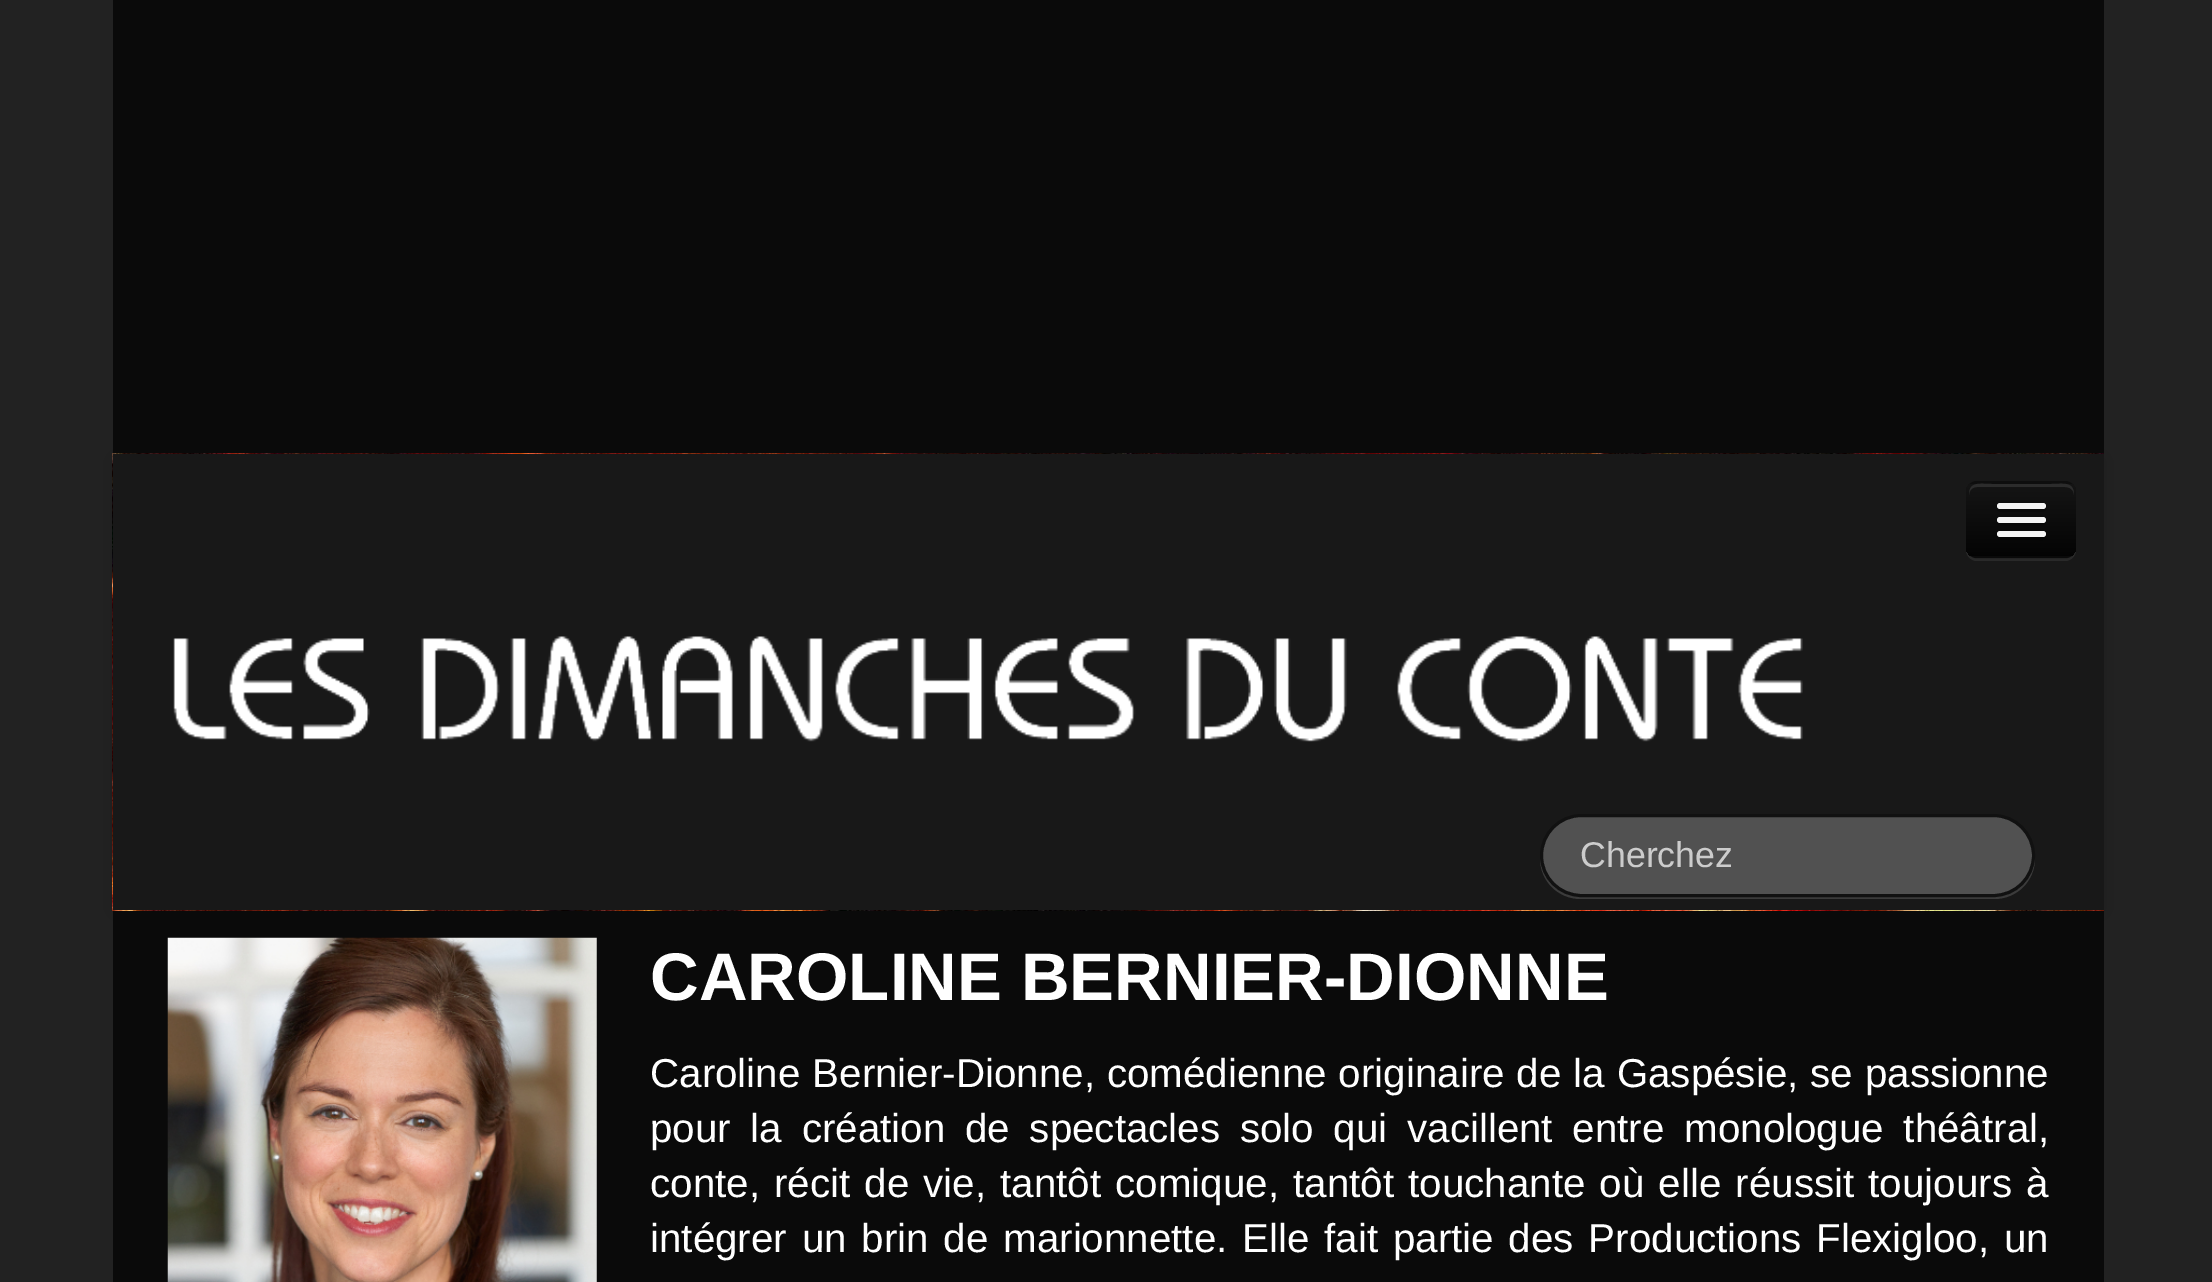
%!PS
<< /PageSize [2212 1282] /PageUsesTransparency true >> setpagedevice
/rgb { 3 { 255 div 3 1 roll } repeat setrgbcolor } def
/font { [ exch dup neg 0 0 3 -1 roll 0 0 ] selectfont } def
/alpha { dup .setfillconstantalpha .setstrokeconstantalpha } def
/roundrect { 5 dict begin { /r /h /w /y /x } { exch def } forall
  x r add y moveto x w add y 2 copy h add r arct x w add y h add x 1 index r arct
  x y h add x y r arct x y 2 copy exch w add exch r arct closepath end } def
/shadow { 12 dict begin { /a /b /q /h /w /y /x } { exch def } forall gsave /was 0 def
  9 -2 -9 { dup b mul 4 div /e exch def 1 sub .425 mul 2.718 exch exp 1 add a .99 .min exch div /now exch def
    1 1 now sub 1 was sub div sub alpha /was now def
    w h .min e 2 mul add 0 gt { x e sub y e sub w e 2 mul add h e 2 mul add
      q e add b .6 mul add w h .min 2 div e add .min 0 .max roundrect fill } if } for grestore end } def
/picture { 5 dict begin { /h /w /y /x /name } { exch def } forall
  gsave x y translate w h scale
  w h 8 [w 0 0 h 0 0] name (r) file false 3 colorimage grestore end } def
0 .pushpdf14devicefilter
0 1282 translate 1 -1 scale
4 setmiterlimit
34 34 34 rgb
0 0 2212 1282 rectfill
10 10 10 rgb
113 0 1991 1282 rectfill
(img/1.rgb) 112 453 1992 458 picture
0 0 0 rgb
113 457 1991 456 0 14 0.1 shadow
24 24 24 rgb
113 454 1991 456 rectfill
41 41 41 rgb
1966 493 moveto 1966 550 lineto 1966 556 1971 561 1977 561 curveto 2065 561 lineto 2071 561 2076 556 2076 550 curveto 2075 555 2071 558 2065 558 curveto 1977 558 lineto 1971 558 1966 553 1966 547 curveto closepath fill
14 14 14 rgb
1966 481 110 77 11 roundrect fill
gsave
1966 481 110 77 11 roundrect clip newpath
gsave 1966 484 moveto 2076 484 lineto 2076 556 lineto 1966 556 lineto closepath clip newpath
<< /ShadingType 2 /ColorSpace /DeviceRGB /Coords [2021 484 2021 556] /Extend [true true] /Function << /FunctionType 2 /Domain [0 1] /C0 [0.082 0.082 0.082] /C1 [0.016 0.016 0.016] /N 1 >> >> shfill grestore
grestore
44 44 44 rgb
1977 487 moveto 2065 487 lineto 2070 487 2074 490 2074 495 curveto 2074 481 2063 484 2051 484 curveto 1992 484 lineto 1980 484 1969 481 1969 495 curveto 1969 490 1973 487 1977 487 curveto closepath fill
0.25 alpha
0 0 0 rgb
2.8 setlinewidth
2072 554 moveto 2070.5 556 2068 557 2065 557 curveto 1977 557 lineto 1974.5 557 1972 556 1970.5 554 curveto stroke
1 alpha
11 11 11 rgb
1997 508 moveto 1995 513 2006 512 2007 512 curveto 2036 512 lineto 2037 512 2049 513 2046 507 curveto 2044 509 lineto 1999 509 lineto closepath fill
245 245 245 rgb
1997 503 49 6 3 roundrect fill
9 9 9 rgb
1997 522 moveto 1995 527 2006 526 2007 526 curveto 2036 526 lineto 2036 526 2050 527 2045 521 curveto 2044 522 lineto 1999 522 lineto closepath fill
245 245 245 rgb
1997 517 49 6 3 roundrect fill
6 6 6 rgb
1997 536 moveto 1994 541 2006 540 2007 540 curveto 2036 540 lineto 2038 540 2045 542 2046 538 curveto 2045 535 lineto 2044 536 lineto 2039 537 1999 537 1997 536 curveto closepath fill
245 245 245 rgb
1997 531 49 6 3 roundrect fill
(img/2.rgb) 173 636 1630 106 picture
59 59 59 rgb
1540 857 moveto 1540 858 lineto 1540 881 1558 899 1581 899 curveto 1994 899 lineto 2017 899 2035 881 2035 858 curveto 2035 857 lineto 2034 879 2016 896 1994 896 curveto 1581 896 lineto 1559 896 1541 879 1540 857 curveto closepath fill
81 81 81 rgb
1541.5 815.5 492 80 40 roundrect gsave fill grestore
17 17 17 rgb
3 setlinewidth
stroke
(img/3.rgb) 167 937 430 345 picture
/LiberationSans-Regular 35.75 font
204 204 204 rgb
1580 867 moveto (Cherchez) show
/LiberationSans-Bold 67.4 font
255 255 255 rgb
650 1000 moveto (CAROLINE BERNIER-DIONNE) show
/LiberationSans-Regular 40.35 font
650 1087 moveto 0.75 0 32 (Caroline Bernier-Dionne, comédienne originaire de la Gaspésie, se passionne) widthshow
650 1142 moveto 8.5 0 32 (pour la création de spectacles solo qui vacillent entre monologue théâtral,) widthshow
650 1197 moveto 2.9 0 32 (conte, récit de vie, tantôt comique, tantôt touchante où elle réussit toujours à) widthshow
650 1252 moveto 3.6 0 32 (intégrer un brin de marionnette. Elle fait partie des Productions Flexigloo, un) widthshow
.poppdf14devicefilter showpage
